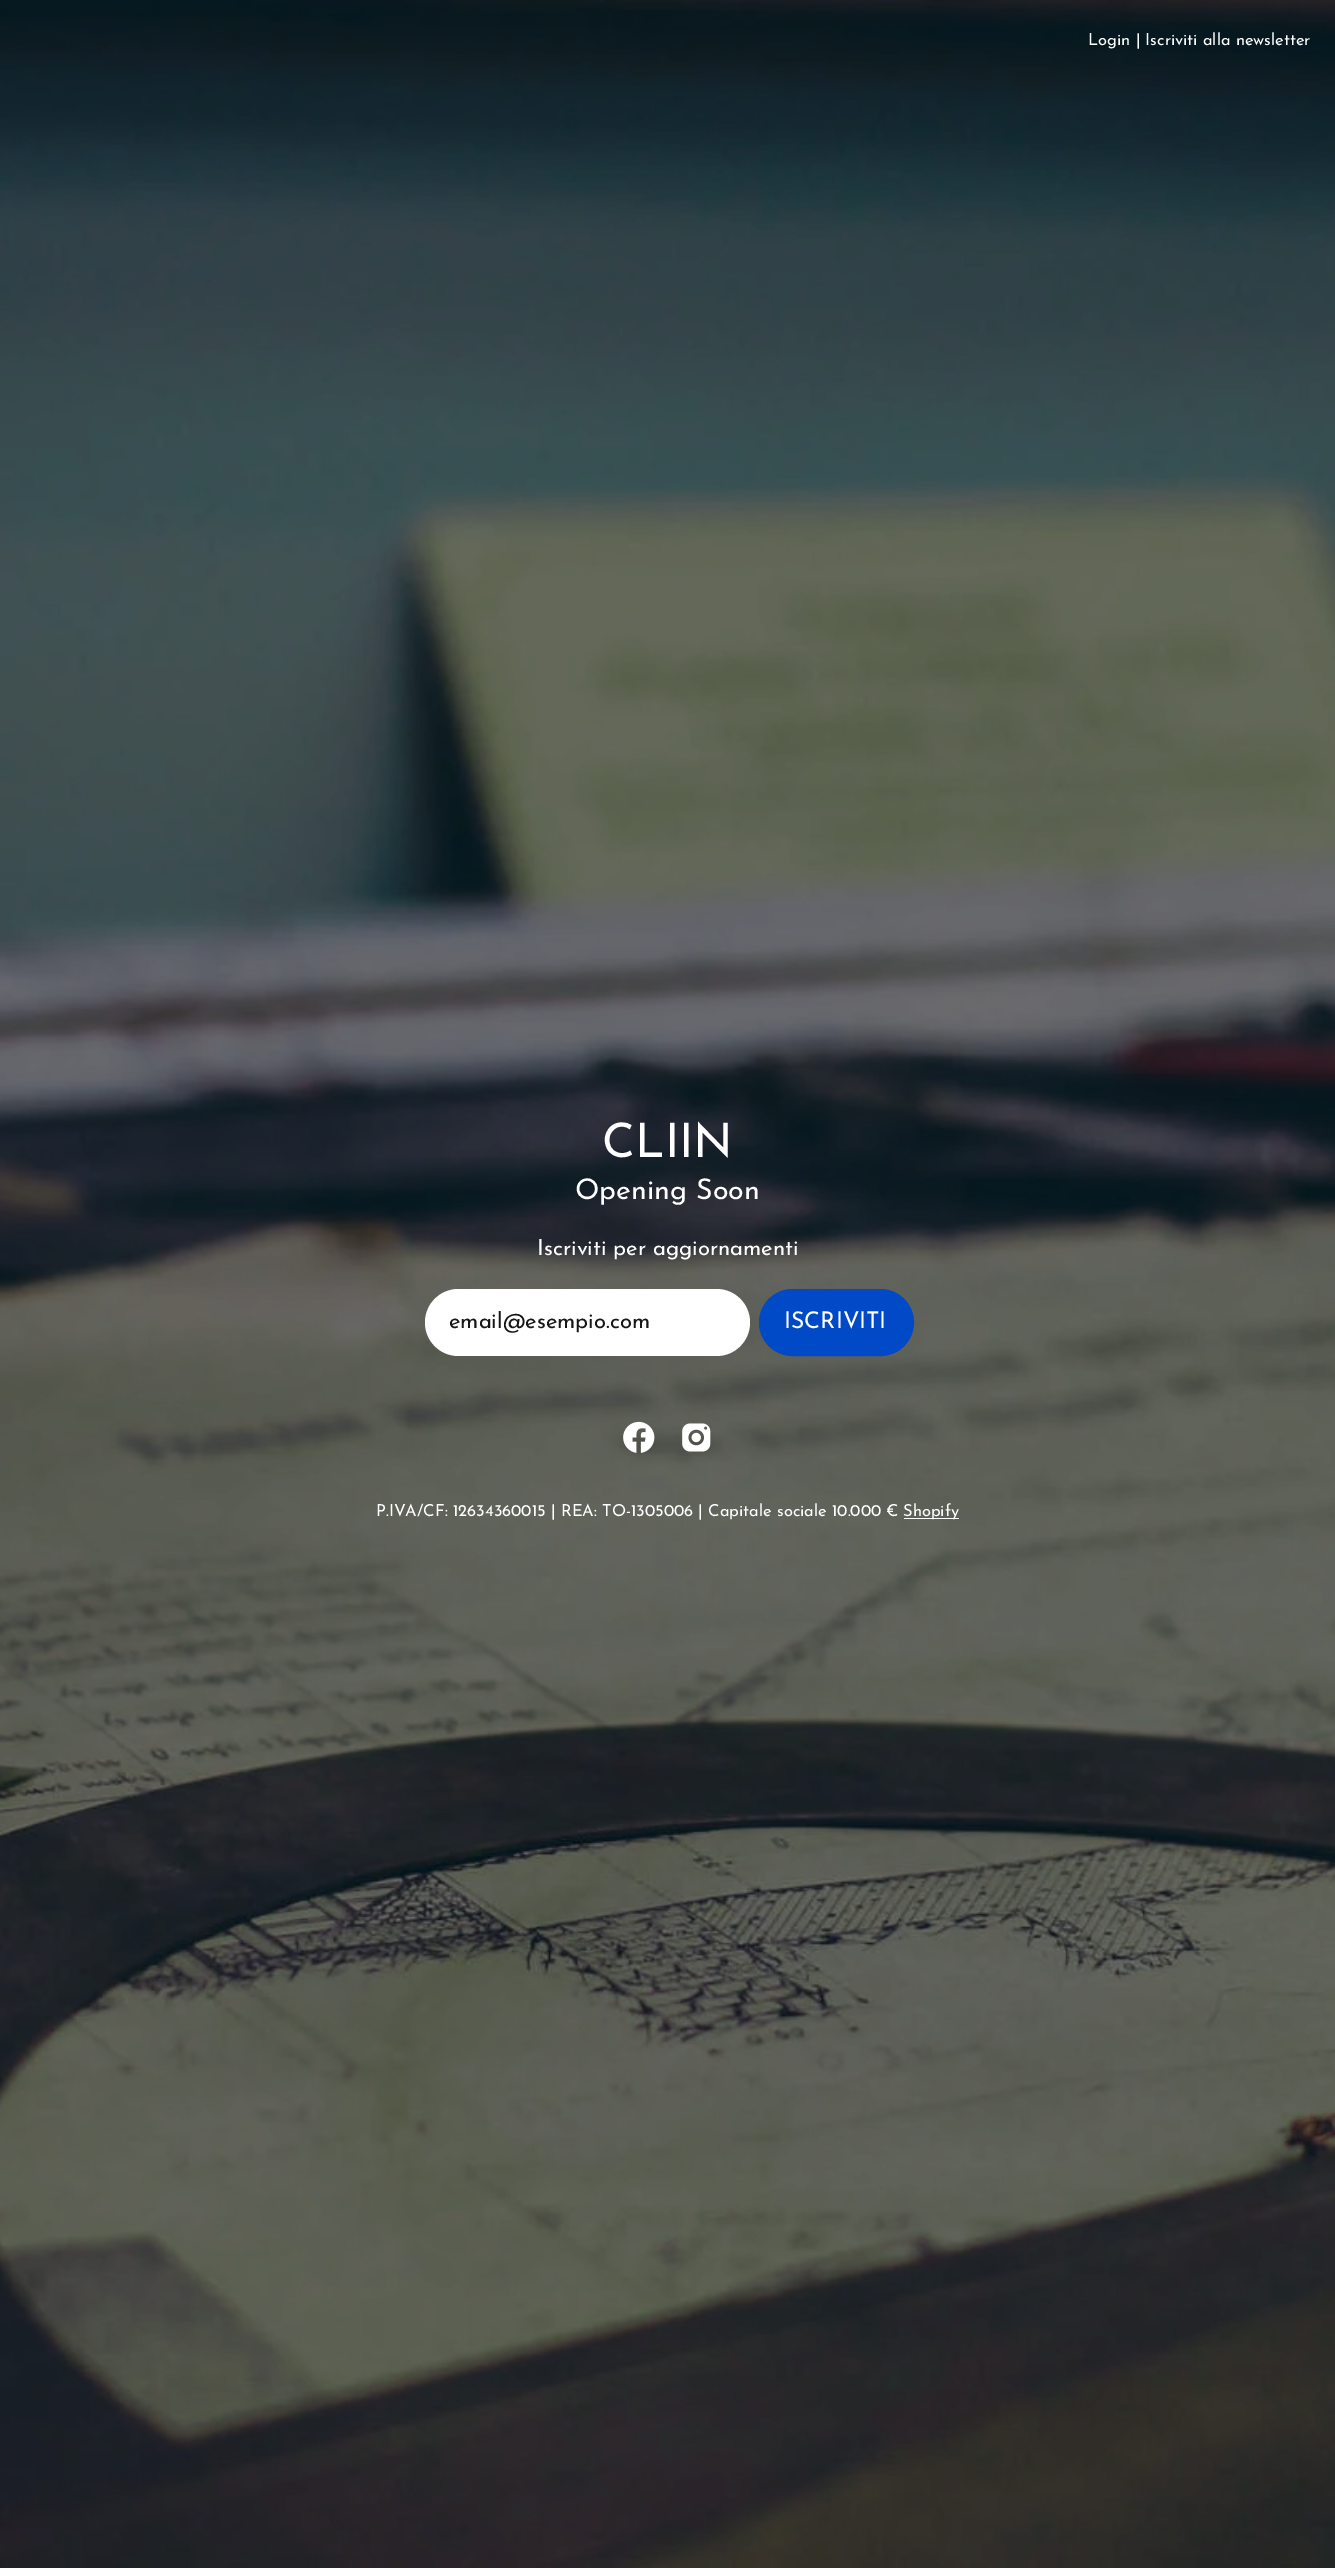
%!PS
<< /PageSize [1335 2568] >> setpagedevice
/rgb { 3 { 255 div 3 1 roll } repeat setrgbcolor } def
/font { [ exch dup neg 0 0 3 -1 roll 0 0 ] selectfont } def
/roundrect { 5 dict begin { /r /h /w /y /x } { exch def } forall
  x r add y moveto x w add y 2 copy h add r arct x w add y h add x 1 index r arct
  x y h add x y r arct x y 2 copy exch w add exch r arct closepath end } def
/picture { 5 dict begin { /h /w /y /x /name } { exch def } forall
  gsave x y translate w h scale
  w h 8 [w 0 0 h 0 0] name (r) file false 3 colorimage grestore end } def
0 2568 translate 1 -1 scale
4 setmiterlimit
255 255 255 rgb
0 0 1335 2568 rectfill
(img/1.rgb) 0 0 1335 2568 picture
425 1289 325 67 33.5 roundrect fill
0 74 199 rgb
759.5 1289.5 154 66 33 roundrect gsave fill grestore
stroke
(img/2.rgb) 623 1421 32 32 picture
(img/3.rgb) 682 1423 29 29 picture
255 255 255 rgb
904 1518 55 1 rectfill
/JosefinSans-Regular 16.5 font
1088 45 moveto (Login | Iscriviti alla newsletter) show
/JosefinSans-Regular 47.5 font
602 1157 moveto (CLIIN) show
/JosefinSans-Regular 28.5 font
575 1199 moveto (Opening Soon) show
/JosefinSans-Regular 22 font
537 1255 moveto (Iscriviti per aggiornamenti) show
24 22 22 rgb
449 1328 moveto (email@esempio.com) show
/JosefinSans-Regular 23 font
255 255 255 rgb
784 1328 moveto (ISCRIVITI) show
/JosefinSans-Regular 16.5 font
376 1516 moveto (P.IVA/CF: 12634360015 | REA: TO-1305006 | Capitale sociale 10.000 €) show
903 1516 moveto (Shopify) show
showpage
